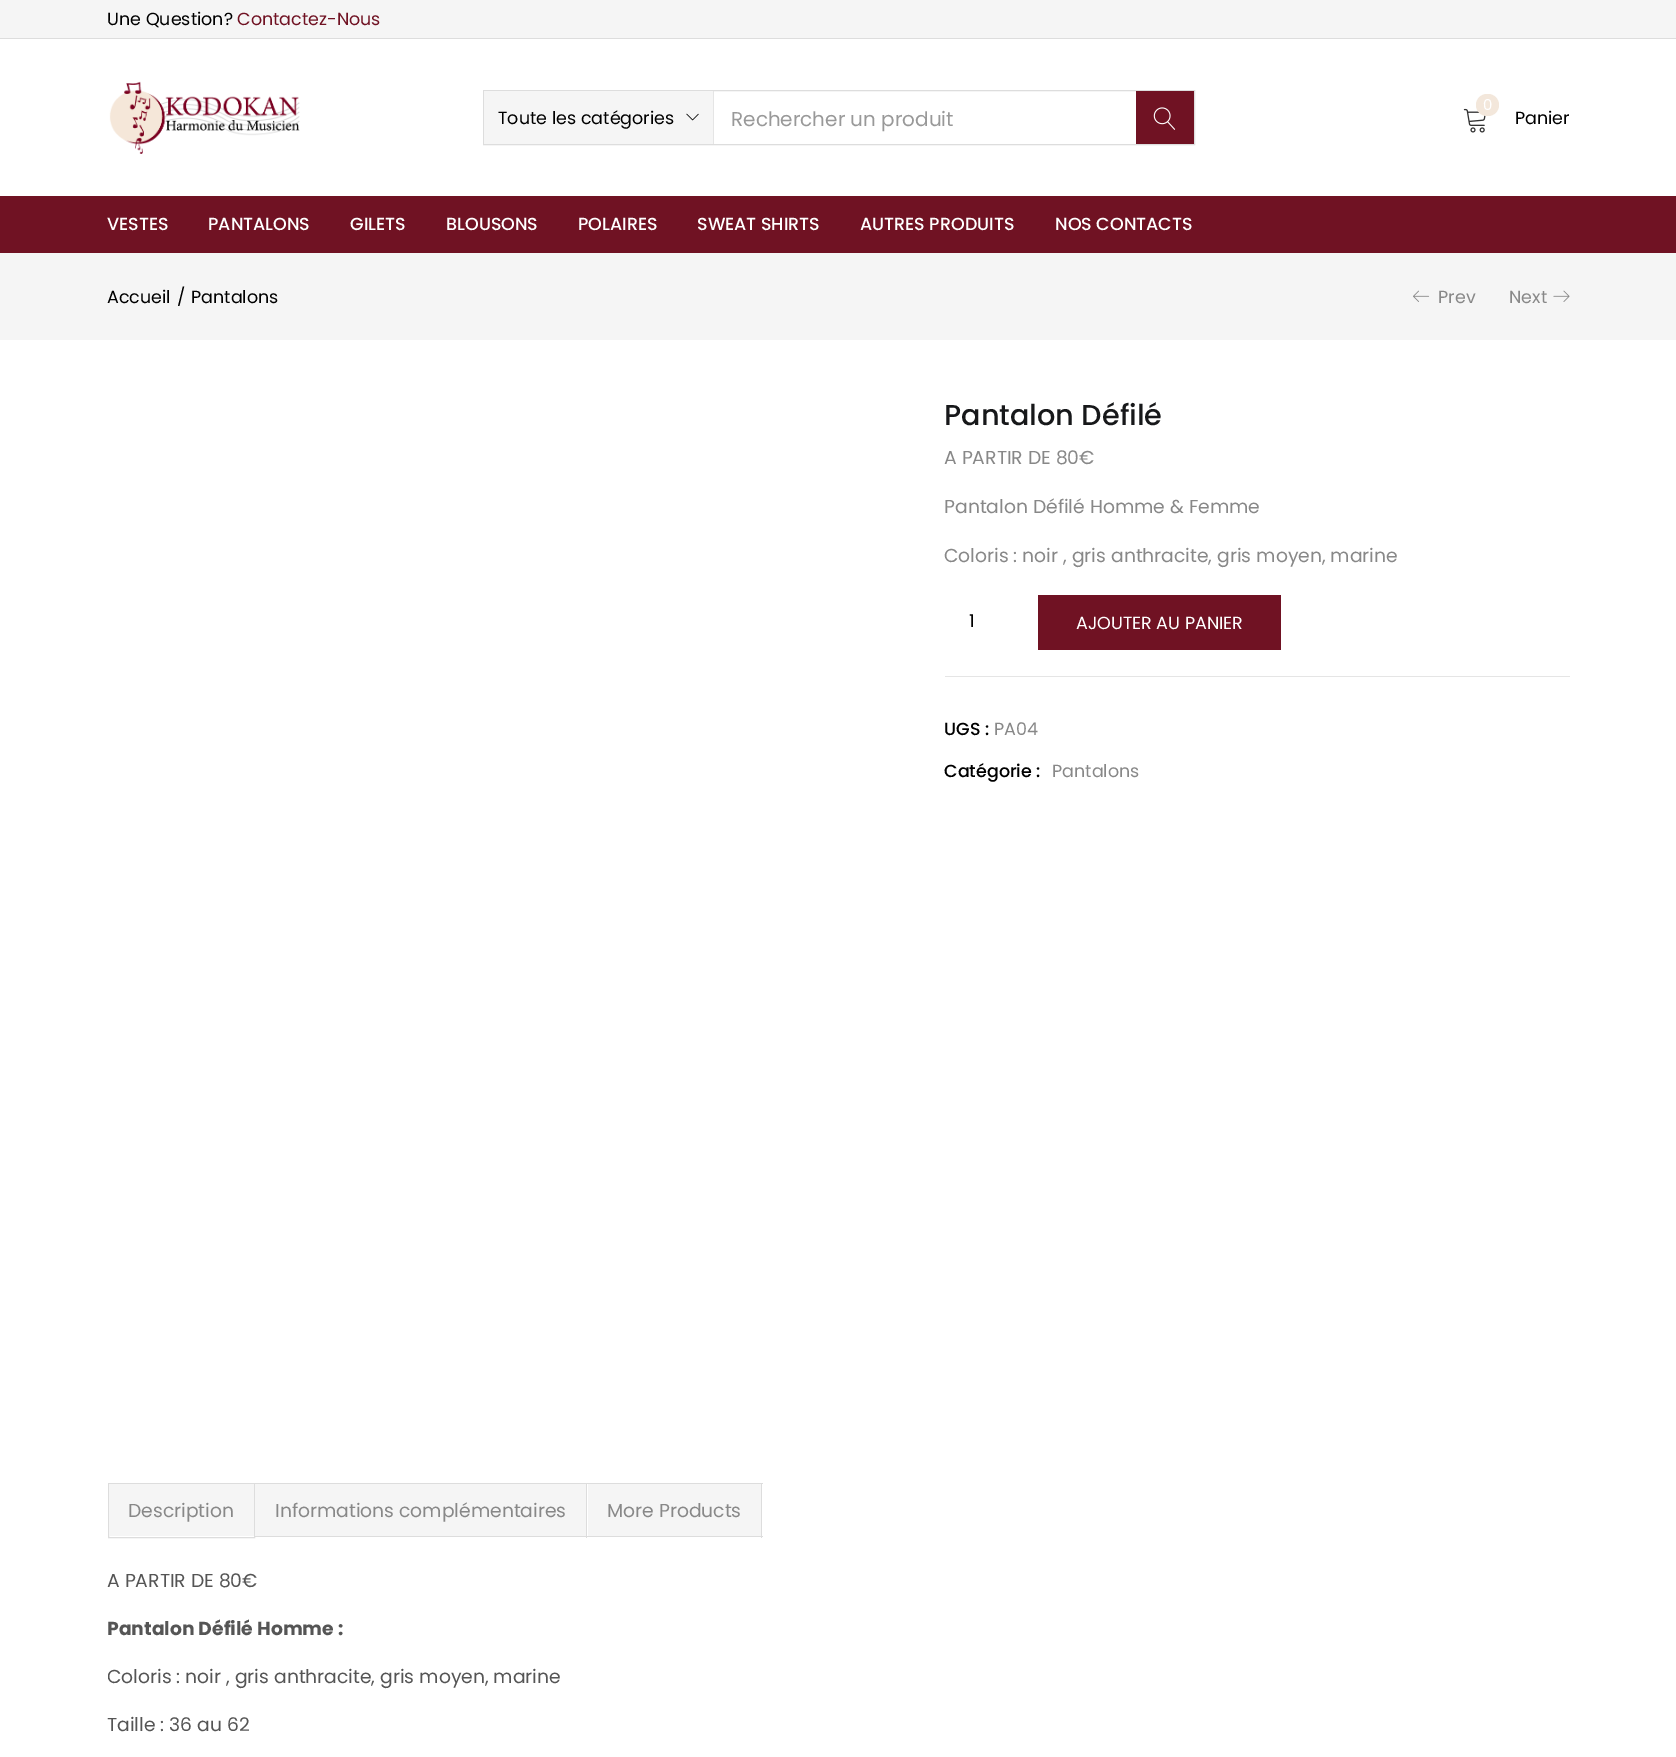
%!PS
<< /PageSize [1676 1757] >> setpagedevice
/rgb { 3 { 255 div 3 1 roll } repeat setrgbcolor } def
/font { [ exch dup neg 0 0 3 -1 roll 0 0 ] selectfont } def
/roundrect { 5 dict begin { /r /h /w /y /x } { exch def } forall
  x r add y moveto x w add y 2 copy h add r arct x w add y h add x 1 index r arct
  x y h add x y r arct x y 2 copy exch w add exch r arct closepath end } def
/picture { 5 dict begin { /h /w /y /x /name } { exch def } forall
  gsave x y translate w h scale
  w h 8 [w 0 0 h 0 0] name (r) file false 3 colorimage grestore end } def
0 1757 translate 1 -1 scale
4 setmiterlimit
255 255 255 rgb
0 0 1676 1757 rectfill
245 245 245 rgb
0 0 1676 38 rectfill
221 221 221 rgb
0 38 1676 1 rectfill
(img/1.rgb) 109 81 191 73 picture
483.5 90.5 711 54 rectstroke
245 245 245 rgb
484 91 229 53 rectfill
229 229 229 rgb
713 91 1 53 rectfill
(img/2.rgb) 686 113 13 8 picture
112 18 35 rgb
1136 91 58 53 rectfill
(img/3.rgb) 1153 107 23 23 picture
(img/4.rgb) 1463 108 23 25 picture
243 231 219 rgb
1476 94 23 22 11 roundrect fill
112 18 35 rgb
0 196 1676 57 rectfill
245 245 245 rgb
0 253 1676 87 rectfill
(img/5.rgb) 1413 290 17 12 picture
(img/6.rgb) 1553 290 17 12 picture
112 18 35 rgb
1038 595 243 55 rectfill
229 229 229 rgb
945 676 625 1 rectfill
221 221 221 rgb
108.5 1483.5 146 54 rectstroke
[
  [109 1484 145 52 245 245 245]
  [255 1483 508 1 221 221 221]
  [586 1483 1 55 221 221 221]
  [255 1536 333 1 221 221 221]
  [255 1484 331 52 245 245 245]
  [761 1483 1 55 221 221 221]
  [588 1536 175 1 221 221 221]
  [588 1484 173 52 245 245 245]
] { aload pop rgb rectfill } forall
/Poppins-Regular 17.5 font
0 0 0 rgb
107 25 moveto (Une Question?) show
112 18 35 rgb
237 25 moveto (Contactez-Nous) show
0 0 0 rgb
498 124 moveto (Toute les catégories) show
/Poppins-Regular 20 font
153 153 153 rgb
731 126 moveto (Rechercher un produit) show
/Poppins-Regular 15 font
255 255 255 rgb
1483 110 moveto (0) show
/Poppins-Regular 17.5 font
0 0 0 rgb
1515 124 moveto (Panier) show
/Poppins-Medium 17.5 font
255 255 255 rgb
[
  [(VESTES) 107 230]
  [(PANTALONS) 208 230]
  [(GILETS) 350 230]
  [(BLOUSONS) 446 230]
  [(POLAIRES) 578 230]
  [(SWEAT SHIRTS) 697 230]
  [(AUTRES PRODUITS) 860 230]
  [(NOS CONTACTS) 1055 230]
] { aload pop moveto show } forall
/Poppins-Regular 17.5 font
0 0 0 rgb
[
  [(Accueil) 107 303]
  [(/) 177 303]
  [(Pantalons) 191 303]
] { aload pop moveto show } forall
136 136 136 rgb
1438 303 moveto (Prev) show
1509 303 moveto (Next) show
/Poppins-Medium 28.75 font
23 24 26 rgb
944 425 moveto (Pantalon Défilé) show
/Poppins-Regular 18.75 font
136 136 136 rgb
[
  [(A PARTIR DE 80€) 944 464]
  [(Pantalon Défilé Homme & Femme) 944 513]
  [(Coloris : noir , gris anthracite, gris moyen, marine) 944 562]
] { aload pop moveto show } forall
/Poppins-Regular 17.5 font
0 0 0 rgb
969 627 moveto (1) show
255 255 255 rgb
1076 629 moveto (AJOUTER AU PANIER) show
/Poppins-Medium 17.5 font
0 0 0 rgb
944 735 moveto (UGS :) show
/Poppins-Regular 17.5 font
136 136 136 rgb
994 735 moveto (PA04) show
/Poppins-Medium 17.5 font
0 0 0 rgb
944 777 moveto (Catégorie :) show
/Poppins-Regular 17.5 font
136 136 136 rgb
1052 777 moveto (Pantalons) show
/Poppins-Regular 18.75 font
[
  [(Description) 128 1517]
  [(Informations complémentaires) 275 1517]
  [(More Products) 607 1517]
] { aload pop moveto show } forall
85 85 85 rgb
107 1587 moveto (A PARTIR DE 80€) show
/Poppins-Bold 18.75 font
107 1635 moveto (Pantalon Défilé Homme :) show
gsave
108 1563 1462 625 rectclip
/Poppins-Regular 18.75 font
107 1683 moveto (Coloris : noir , gris anthracite, gris moyen, marine) show
grestore
/Poppins-Regular 18.75 font
107 1731 moveto (Taille : 36 au 62) show
showpage
